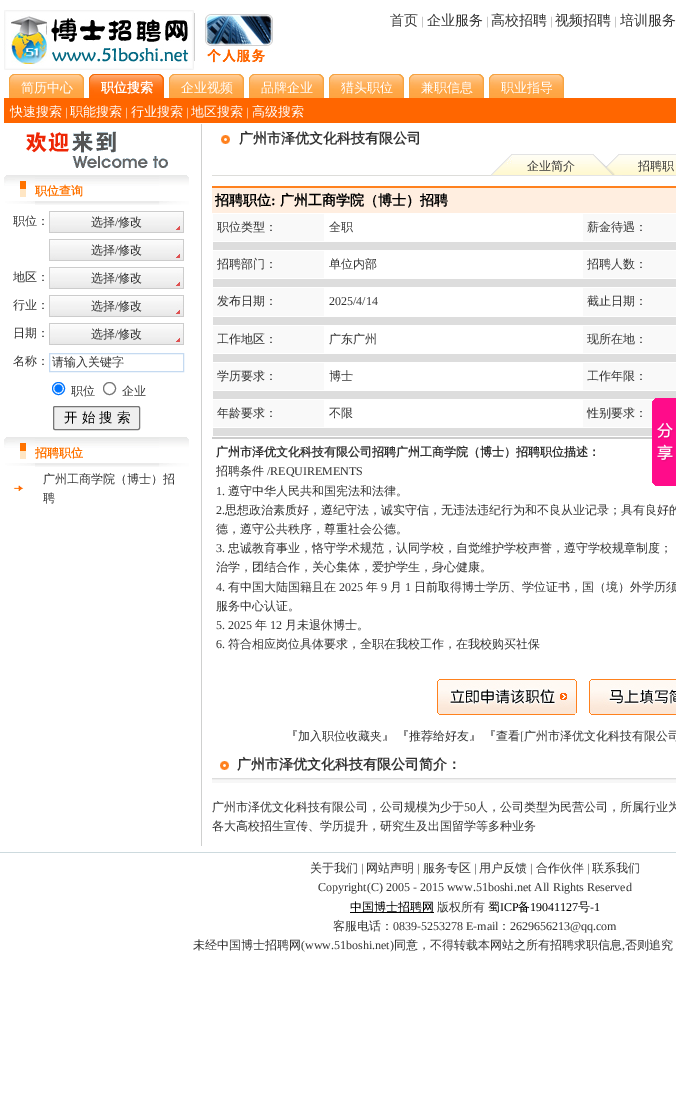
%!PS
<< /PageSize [676 1102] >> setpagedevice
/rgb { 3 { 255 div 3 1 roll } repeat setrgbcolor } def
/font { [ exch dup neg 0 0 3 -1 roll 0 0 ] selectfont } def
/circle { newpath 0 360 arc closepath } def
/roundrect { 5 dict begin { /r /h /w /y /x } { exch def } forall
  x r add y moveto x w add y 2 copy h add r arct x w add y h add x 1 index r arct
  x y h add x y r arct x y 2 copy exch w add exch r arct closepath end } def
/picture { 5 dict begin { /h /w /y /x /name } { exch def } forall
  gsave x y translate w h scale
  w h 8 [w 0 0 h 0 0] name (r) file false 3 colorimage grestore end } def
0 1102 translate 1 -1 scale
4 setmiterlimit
255 255 255 rgb
0 0 676 1102 rectfill
(img/1.rgb) 4 10 190 60 picture
(img/2.rgb) 194 13 79 50 picture
(img/3.rgb) 9 74 5 24 picture
(img/4.rgb) 14 74 65 24 picture
(img/5.rgb) 79 74 5 24 picture
(img/6.rgb) 89 74 5 24 picture
(img/7.rgb) 94 74 65 24 picture
(img/8.rgb) 159 74 5 24 picture
(img/3.rgb) 169 74 5 24 picture
(img/4.rgb) 174 74 65 24 picture
(img/5.rgb) 239 74 5 24 picture
(img/3.rgb) 249 74 5 24 picture
(img/4.rgb) 254 74 65 24 picture
(img/5.rgb) 319 74 5 24 picture
(img/3.rgb) 329 74 5 24 picture
(img/4.rgb) 334 74 65 24 picture
(img/5.rgb) 399 74 5 24 picture
(img/3.rgb) 409 74 5 24 picture
(img/4.rgb) 414 74 65 24 picture
(img/5.rgb) 479 74 5 24 picture
(img/3.rgb) 489 74 5 24 picture
(img/4.rgb) 494 74 65 24 picture
(img/5.rgb) 559 74 5 24 picture
255 102 0 rgb
4 98 672 25 rectfill
(img/9.rgb) 26 131 142 37 picture
(img/10.rgb) 4 175 31 29 picture
(img/11.rgb) 35 175 124 30 picture
(img/12.rgb) 159 175 30 30 picture
(img/13.rgb) 49 211 135 22 picture
(img/13.rgb) 49 239 135 22 picture
(img/13.rgb) 49 267 135 22 picture
(img/13.rgb) 49 295 135 22 picture
(img/13.rgb) 49 323 135 22 picture
197 218 241 rgb
49.5 353.5 134 18 rectstroke
0 117 255 rgb
58.5 388.5 6 circle stroke
58.5 388.5 4 circle fill
118 118 118 rgb
109.5 388.5 6 circle stroke
239 239 239 rgb
53.5 406.5 86 23 1.5 roundrect gsave fill grestore
118 118 118 rgb
stroke
(img/10.rgb) 4 437 31 29 picture
(img/11.rgb) 35 437 124 30 picture
(img/12.rgb) 159 437 30 30 picture
(img/14.rgb) 13 485 11 6 picture
207 208 207 rgb
201 124 1 722 rectfill
(img/15.rgb) 221 135 9 9 picture
(img/16.rgb) 491 154 21 22 picture
(img/17.rgb) 512 154 78 22 picture
(img/18.rgb) 590 154 32 22 picture
(img/19.rgb) 622 154 54 22 picture
[
  [212 175 279 1 221 221 218]
  [212 186 464 2 255 129 30]
  [212 188 464 25 255 238 224]
  [213 214 111 27 249 249 249]
  [583 214 93 27 249 249 249]
  [213 242 463 8 221 221 221]
  [213 251 111 27 249 249 249]
  [583 251 93 27 249 249 249]
  [213 279 463 8 221 221 221]
  [213 288 111 28 249 249 249]
  [583 288 93 28 249 249 249]
  [213 317 463 8 221 221 221]
  [213 326 111 27 249 249 249]
  [583 326 93 27 249 249 249]
  [213 354 463 8 221 221 221]
  [213 363 111 27 249 249 249]
  [583 363 93 27 249 249 249]
  [213 391 463 8 221 221 221]
  [213 400 111 27 249 249 249]
  [583 400 70 27 249 249 249]
  [213 428 439 8 221 221 221]
  [212 437 440 2 204 204 204]
] { aload pop rgb rectfill } forall
(img/20.rgb) 437 679 140 36 picture
(img/21.rgb) 589 679 87 36 picture
(img/15.rgb) 220 761 9 9 picture
(img/22.rgb) 212 778 464 5 picture
(img/23.rgb) 652 398 24 88 picture
205 218 222 rgb
0 852 676 1 rectfill
0 0 0 rgb
350 912 84 1 rectfill
/WenQuanYiZenHei-Medium 14 font
51 51 51 rgb
390 25 moveto (首页) show
/LiberationSerif-Regular 12 font
153 153 153 rgb
421 25 moveto (|) show
/WenQuanYiZenHei-Medium 14 font
51 51 51 rgb
427 25 moveto (企业服务) show
/LiberationSerif-Regular 12 font
153 153 153 rgb
486 25 moveto (|) show
/WenQuanYiZenHei-Medium 14 font
51 51 51 rgb
491 25 moveto (高校招聘) show
/LiberationSerif-Regular 12 font
153 153 153 rgb
550 25 moveto (|) show
/WenQuanYiZenHei-Medium 14 font
51 51 51 rgb
555 25 moveto (视频招聘) show
/LiberationSerif-Regular 12 font
153 153 153 rgb
614 25 moveto (|) show
/WenQuanYiZenHei-Medium 14 font
51 51 51 rgb
620 25 moveto (培训服务) show
/WenQuanYiZenHei-Medium 13 font
255 255 255 rgb
21 92 moveto (简历中心) show
/WenQuanYiZenHei-Bold 13 font
101 92 moveto (职位搜索) show
/WenQuanYiZenHei-Medium 13 font
[
  [(企业视频) 181 92]
  [(品牌企业) 261 92]
  [(猎头职位) 341 92]
  [(兼职信息) 421 92]
  [(职业指导) 501 92]
  [(快速搜索) 10 116]
] { aload pop moveto show } forall
/LiberationSerif-Regular 12 font
65 116 moveto (|) show
/WenQuanYiZenHei-Medium 13 font
70 116 moveto (职能搜索) show
/LiberationSerif-Regular 12 font
125 116 moveto (|) show
/WenQuanYiZenHei-Medium 13 font
131 116 moveto (行业搜索) show
/LiberationSerif-Regular 12 font
186 116 moveto (|) show
/WenQuanYiZenHei-Medium 13 font
191 116 moveto (地区搜索) show
/LiberationSerif-Regular 12 font
246 116 moveto (|) show
/WenQuanYiZenHei-Medium 13 font
252 116 moveto (高级搜索) show
/WenQuanYiZenHei-Bold 12 font
255 115 0 rgb
35 195 moveto (职位查询) show
/WenQuanYiZenHei-Medium 12 font
51 51 51 rgb
13 225 moveto (职位：) show
91 226 moveto (选择) show
/LiberationSerif-Regular 12 font
115 226 moveto (/) show
/WenQuanYiZenHei-Medium 12 font
118 226 moveto (修改) show
91 254 moveto (选择) show
/LiberationSerif-Regular 12 font
115 254 moveto (/) show
/WenQuanYiZenHei-Medium 12 font
[
  [(修改) 118 254]
  [(地区：) 13 281]
  [(选择) 91 282]
] { aload pop moveto show } forall
/LiberationSerif-Regular 12 font
115 282 moveto (/) show
/WenQuanYiZenHei-Medium 12 font
[
  [(修改) 118 282]
  [(行业：) 13 309]
  [(选择) 91 310]
] { aload pop moveto show } forall
/LiberationSerif-Regular 12 font
115 310 moveto (/) show
/WenQuanYiZenHei-Medium 12 font
[
  [(修改) 118 310]
  [(日期：) 13 337]
  [(选择) 91 338]
] { aload pop moveto show } forall
/LiberationSerif-Regular 12 font
115 338 moveto (/) show
/WenQuanYiZenHei-Medium 12 font
[
  [(修改) 118 338]
  [(名称：) 13 365]
  [(请输入关键字) 52 366]
  [(职位) 71 395]
  [(企业) 122 395]
] { aload pop moveto show } forall
/WenQuanYiZenHei-Medium 13.5 font
0 0 0 rgb
64 422 moveto (开 始 搜 索) show
/WenQuanYiZenHei-Bold 12 font
255 115 0 rgb
35 457 moveto (招聘职位) show
/WenQuanYiZenHei-Medium 12 font
51 51 51 rgb
43 483 moveto (广州工商学院（博士）招) show
43 502 moveto (聘) show
/WenQuanYiZenHei-Bold 14 font
239 143 moveto (广州市泽优文化科技有限公司) show
/WenQuanYiZenHei-Medium 12 font
527 170 moveto (企业简介) show
638 170 moveto (招聘职) show
/WenQuanYiZenHei-Bold 14 font
0 0 0 rgb
215 205 moveto (招聘职位) show
/LiberationSerif-Bold 14 font
271 205 moveto (:) show
/WenQuanYiZenHei-Bold 14 font
280 205 moveto (广州工商学院（博士）招聘) show
/WenQuanYiZenHei-Medium 12 font
51 51 51 rgb
[
  [(职位类型：) 217 231]
  [(全职) 329 231]
  [(薪金待遇：) 587 231]
  [(招聘部门：) 217 268]
  [(单位内部) 329 268]
  [(招聘人数：) 587 268]
  [(发布日期：) 217 305]
] { aload pop moveto show } forall
/LiberationSerif-Regular 12 font
329 305 moveto (2025/4/14) show
/WenQuanYiZenHei-Medium 12 font
[
  [(截止日期：) 587 305]
  [(工作地区：) 217 343]
  [(广东广州) 329 343]
  [(现所在地：) 587 343]
  [(学历要求：) 217 380]
  [(博士) 329 380]
  [(工作年限：) 587 380]
  [(年龄要求：) 217 417]
  [(不限) 329 417]
  [(性别要求：) 587 417]
] { aload pop moveto show } forall
/WenQuanYiZenHei-Bold 12 font
216 456 moveto (广州市泽优文化科技有限公司招聘广州工商学院（博士）招聘职位描述：) show
/WenQuanYiZenHei-Medium 12 font
216 475 moveto (招聘条件) show
/LiberationSerif-Regular 12 font
267 475 moveto (/REQUIREMENTS) show
216 495 moveto (1.) show
/WenQuanYiZenHei-Medium 12 font
228 495 moveto (遵守中华人民共和国宪法和法律。) show
/LiberationSerif-Regular 12 font
216 514 moveto (2.) show
/WenQuanYiZenHei-Medium 12 font
225 514 moveto (思想政治素质好，遵纪守法，诚实守信，无违法违纪行为和不良从业记录；具有良好的) show
216 533 moveto (德，遵守公共秩序，尊重社会公德。) show
/LiberationSerif-Regular 12 font
216 552 moveto (3.) show
/WenQuanYiZenHei-Medium 12 font
228 552 moveto (忠诚教育事业，恪守学术规范，认同学校，自觉维护学校声誉，遵守学校规章制度；) show
216 571 moveto (治学，团结合作，关心集体，爱护学生，身心健康。) show
/LiberationSerif-Regular 12 font
216 591 moveto (4.) show
/WenQuanYiZenHei-Medium 12 font
228 591 moveto (有中国大陆国籍且在) show
/LiberationSerif-Regular 12 font
339 591 moveto (2025) show
/WenQuanYiZenHei-Medium 12 font
366 591 moveto (年) show
/LiberationSerif-Regular 12 font
381 591 moveto (9) show
/WenQuanYiZenHei-Medium 12 font
390 591 moveto (月) show
/LiberationSerif-Regular 12 font
405 591 moveto (1) show
/WenQuanYiZenHei-Medium 12 font
414 591 moveto (日前取得博士学历、学位证书，国（境）外学历须) show
216 610 moveto (服务中心认证。) show
/LiberationSerif-Regular 12 font
216 629 moveto (5. 2025) show
/WenQuanYiZenHei-Medium 12 font
255 629 moveto (年) show
/LiberationSerif-Regular 12 font
270 629 moveto (12) show
/WenQuanYiZenHei-Medium 12 font
285 629 moveto (月未退休博士。) show
/LiberationSerif-Regular 12 font
216 648 moveto (6.) show
/WenQuanYiZenHei-Medium 12 font
[
  [(符合相应岗位具体要求，全职在我校工作，在我校购买社保) 228 648]
  [(『加入职位收藏夹』) 286 740]
  [(『推荐给好友』) 397 740]
  [(『查看) 484 740]
] { aload pop moveto show } forall
/LiberationSerif-Regular 12 font
520 740 moveto ([) show
/WenQuanYiZenHei-Medium 12 font
524 740 moveto (广州市泽优文化科技有限公司) show
/WenQuanYiZenHei-Bold 14 font
237 769 moveto (广州市泽优文化科技有限公司简介：) show
/WenQuanYiZenHei-Medium 12 font
212 811 moveto (广州市泽优文化科技有限公司，公司规模为少于) show
/LiberationSerif-Regular 12 font
464 811 moveto (50) show
/WenQuanYiZenHei-Medium 12 font
[
  [(人，公司类型为民营公司，所属行业为) 476 811]
  [(各大高校招生宣传、学历提升，研究生及出国留学等多种业务) 212 830]
  [(关于我们) 310 872]
] { aload pop moveto show } forall
/LiberationSerif-Regular 12 font
361 872 moveto (|) show
/WenQuanYiZenHei-Medium 12 font
366 872 moveto (网站声明) show
/LiberationSerif-Regular 12 font
417 872 moveto (|) show
/WenQuanYiZenHei-Medium 12 font
423 872 moveto (服务专区) show
/LiberationSerif-Regular 12 font
474 872 moveto (|) show
/WenQuanYiZenHei-Medium 12 font
479 872 moveto (用户反馈) show
/LiberationSerif-Regular 12 font
530 872 moveto (|) show
/WenQuanYiZenHei-Medium 12 font
536 872 moveto (合作伙伴) show
/LiberationSerif-Regular 12 font
587 872 moveto (|) show
/WenQuanYiZenHei-Medium 12 font
592 872 moveto (联系我们) show
/LiberationSerif-Regular 12 font
318 891 moveto (Copyright\(C\) 2005 - 2015 www.51boshi.net All Rights Reserved) show
/WenQuanYiZenHei-Medium 12 font
0 0 0 rgb
350 911 moveto (中国博士招聘网) show
51 51 51 rgb
437 911 moveto (版权所有) show
0 0 0 rgb
488 911 moveto (蜀) show
/LiberationSerif-Regular 12 font
500 911 moveto (ICP) show
/WenQuanYiZenHei-Medium 12 font
518 911 moveto (备) show
/LiberationSerif-Regular 12 font
530 911 moveto (19041127) show
/WenQuanYiZenHei-Medium 12 font
578 911 moveto (号) show
/LiberationSerif-Regular 12 font
590 911 moveto (-1) show
/WenQuanYiZenHei-Medium 12 font
51 51 51 rgb
333 930 moveto (客服电话：) show
/LiberationSerif-Regular 12 font
393 930 moveto (0839-5253278 E-mail) show
/WenQuanYiZenHei-Medium 12 font
498 930 moveto (：) show
/LiberationSerif-Regular 12 font
510 930 moveto (2629656213@qq.com) show
/WenQuanYiZenHei-Medium 12 font
193 949 moveto (未经中国博士招聘网) show
/LiberationSerif-Regular 12 font
301 949 moveto (\(www.51boshi.net\)) show
/WenQuanYiZenHei-Medium 12 font
394 949 moveto (同意，不得转载本网站之所有招聘求职信息) show
/LiberationSerif-Regular 12 font
622 949 moveto (,) show
/WenQuanYiZenHei-Medium 12 font
625 949 moveto (否则追究) show
showpage
